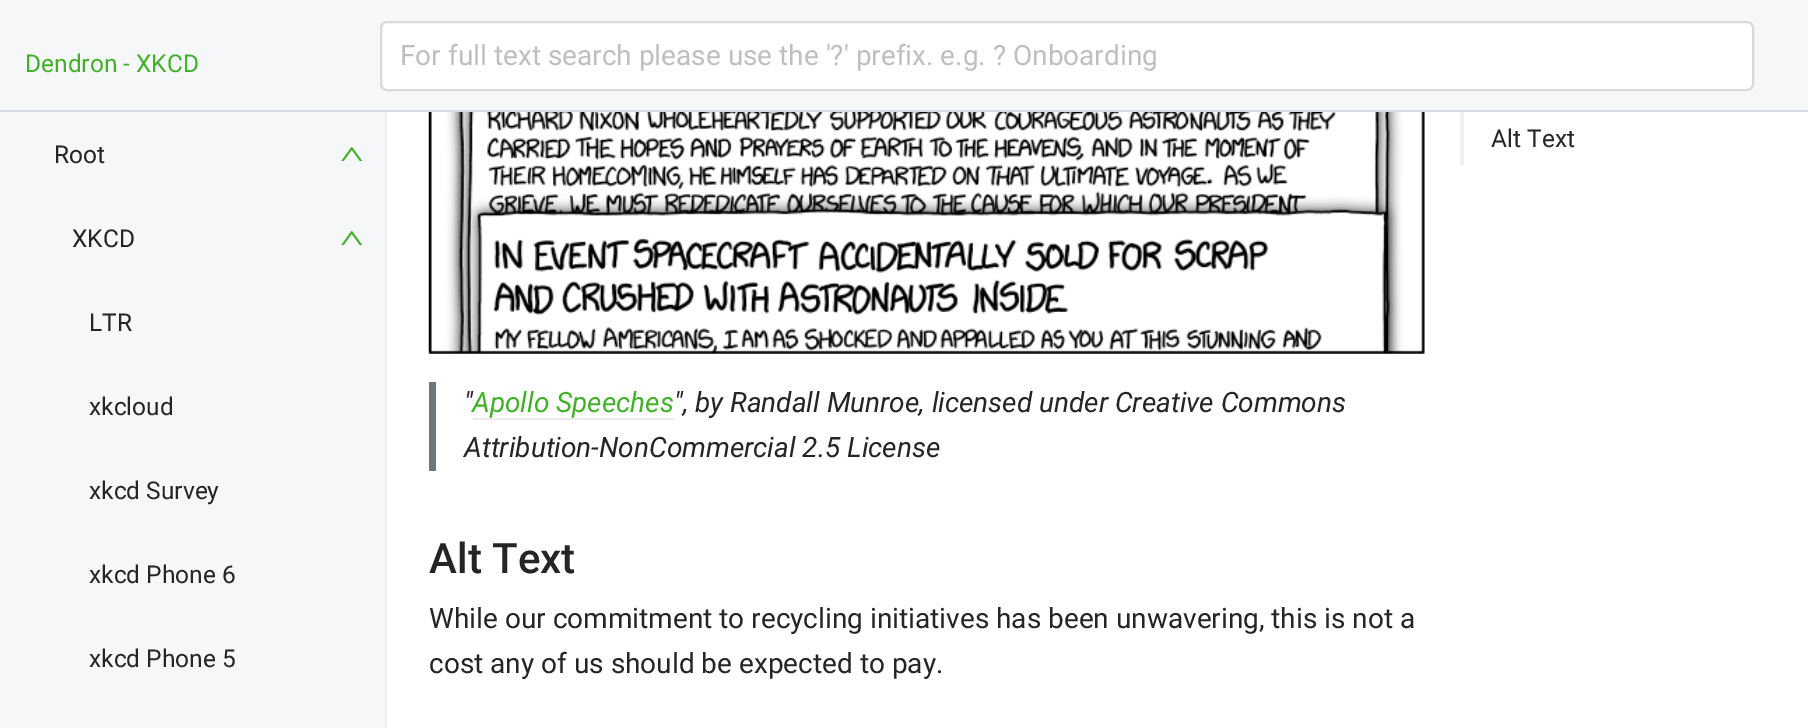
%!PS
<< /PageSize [1808 728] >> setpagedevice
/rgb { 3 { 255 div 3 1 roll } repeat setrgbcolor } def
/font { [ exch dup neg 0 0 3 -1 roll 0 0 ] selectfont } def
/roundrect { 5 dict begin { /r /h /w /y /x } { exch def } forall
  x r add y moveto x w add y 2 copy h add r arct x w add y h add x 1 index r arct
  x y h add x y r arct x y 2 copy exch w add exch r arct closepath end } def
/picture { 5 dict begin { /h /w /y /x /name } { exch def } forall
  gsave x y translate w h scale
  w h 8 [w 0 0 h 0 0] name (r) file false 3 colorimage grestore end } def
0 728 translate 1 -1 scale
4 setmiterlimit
255 255 255 rgb
0 0 1808 728 rectfill
245 247 249 rgb
0 0 1808 110 rectfill
212 218 223 rgb
0 110 1808 2 rectfill
255 255 255 rgb
381 22 1372 68 6 roundrect gsave fill grestore
217 217 217 rgb
2 setlinewidth
stroke
245 247 249 rgb
0 112 385 616 rectfill
240 240 240 rgb
385 112 2 616 rectfill
(img/1.rgb) 341 147 22 14 picture
(img/1.rgb) 341 231 22 14 picture
1460 112 4 53 rectfill
(img/2.rgb) 428 112 997 242 picture
111 119 125 rgb
429 382 7 89 rectfill
238 235 238 rgb
473 418 201 2 rectfill
/Roboto-Regular 24.5 font
67 176 42 rgb
25 72 moveto (Dendron - XKCD) show
/Roboto-Regular 28 font
191 191 191 rgb
400 65 moveto (For full text search please use the '?' prefix. e.g. ? Onboarding) show
/Roboto-Regular 24.5 font
37 37 37 rgb
[
  [(Root) 54 163]
  [(XKCD) 72 247]
  [(LTR) 89 331]
  [(xkcloud) 89 415]
  [(xkcd Survey) 89 499]
  [(xkcd Phone 6) 89 583]
  [(xkcd Phone 5) 89 667]
  [(Alt Text) 1491 147]
] { aload pop moveto show } forall
/Roboto-Italic 28 font
464 412 moveto (") show
67 176 42 rgb
472 412 moveto (Apollo Speeches) show
37 37 37 rgb
674 412 moveto (", by Randall Munroe, licensed under Creative Commons) show
464 457 moveto (Attribution-NonCommercial 2.5 License) show
/Roboto-Medium 42 font
429 573 moveto (Alt Text) show
/Roboto-Regular 28 font
429 628 moveto (While our commitment to recycling initiatives has been unwavering, this is not a) show
429 673 moveto (cost any of us should be expected to pay.) show
showpage
